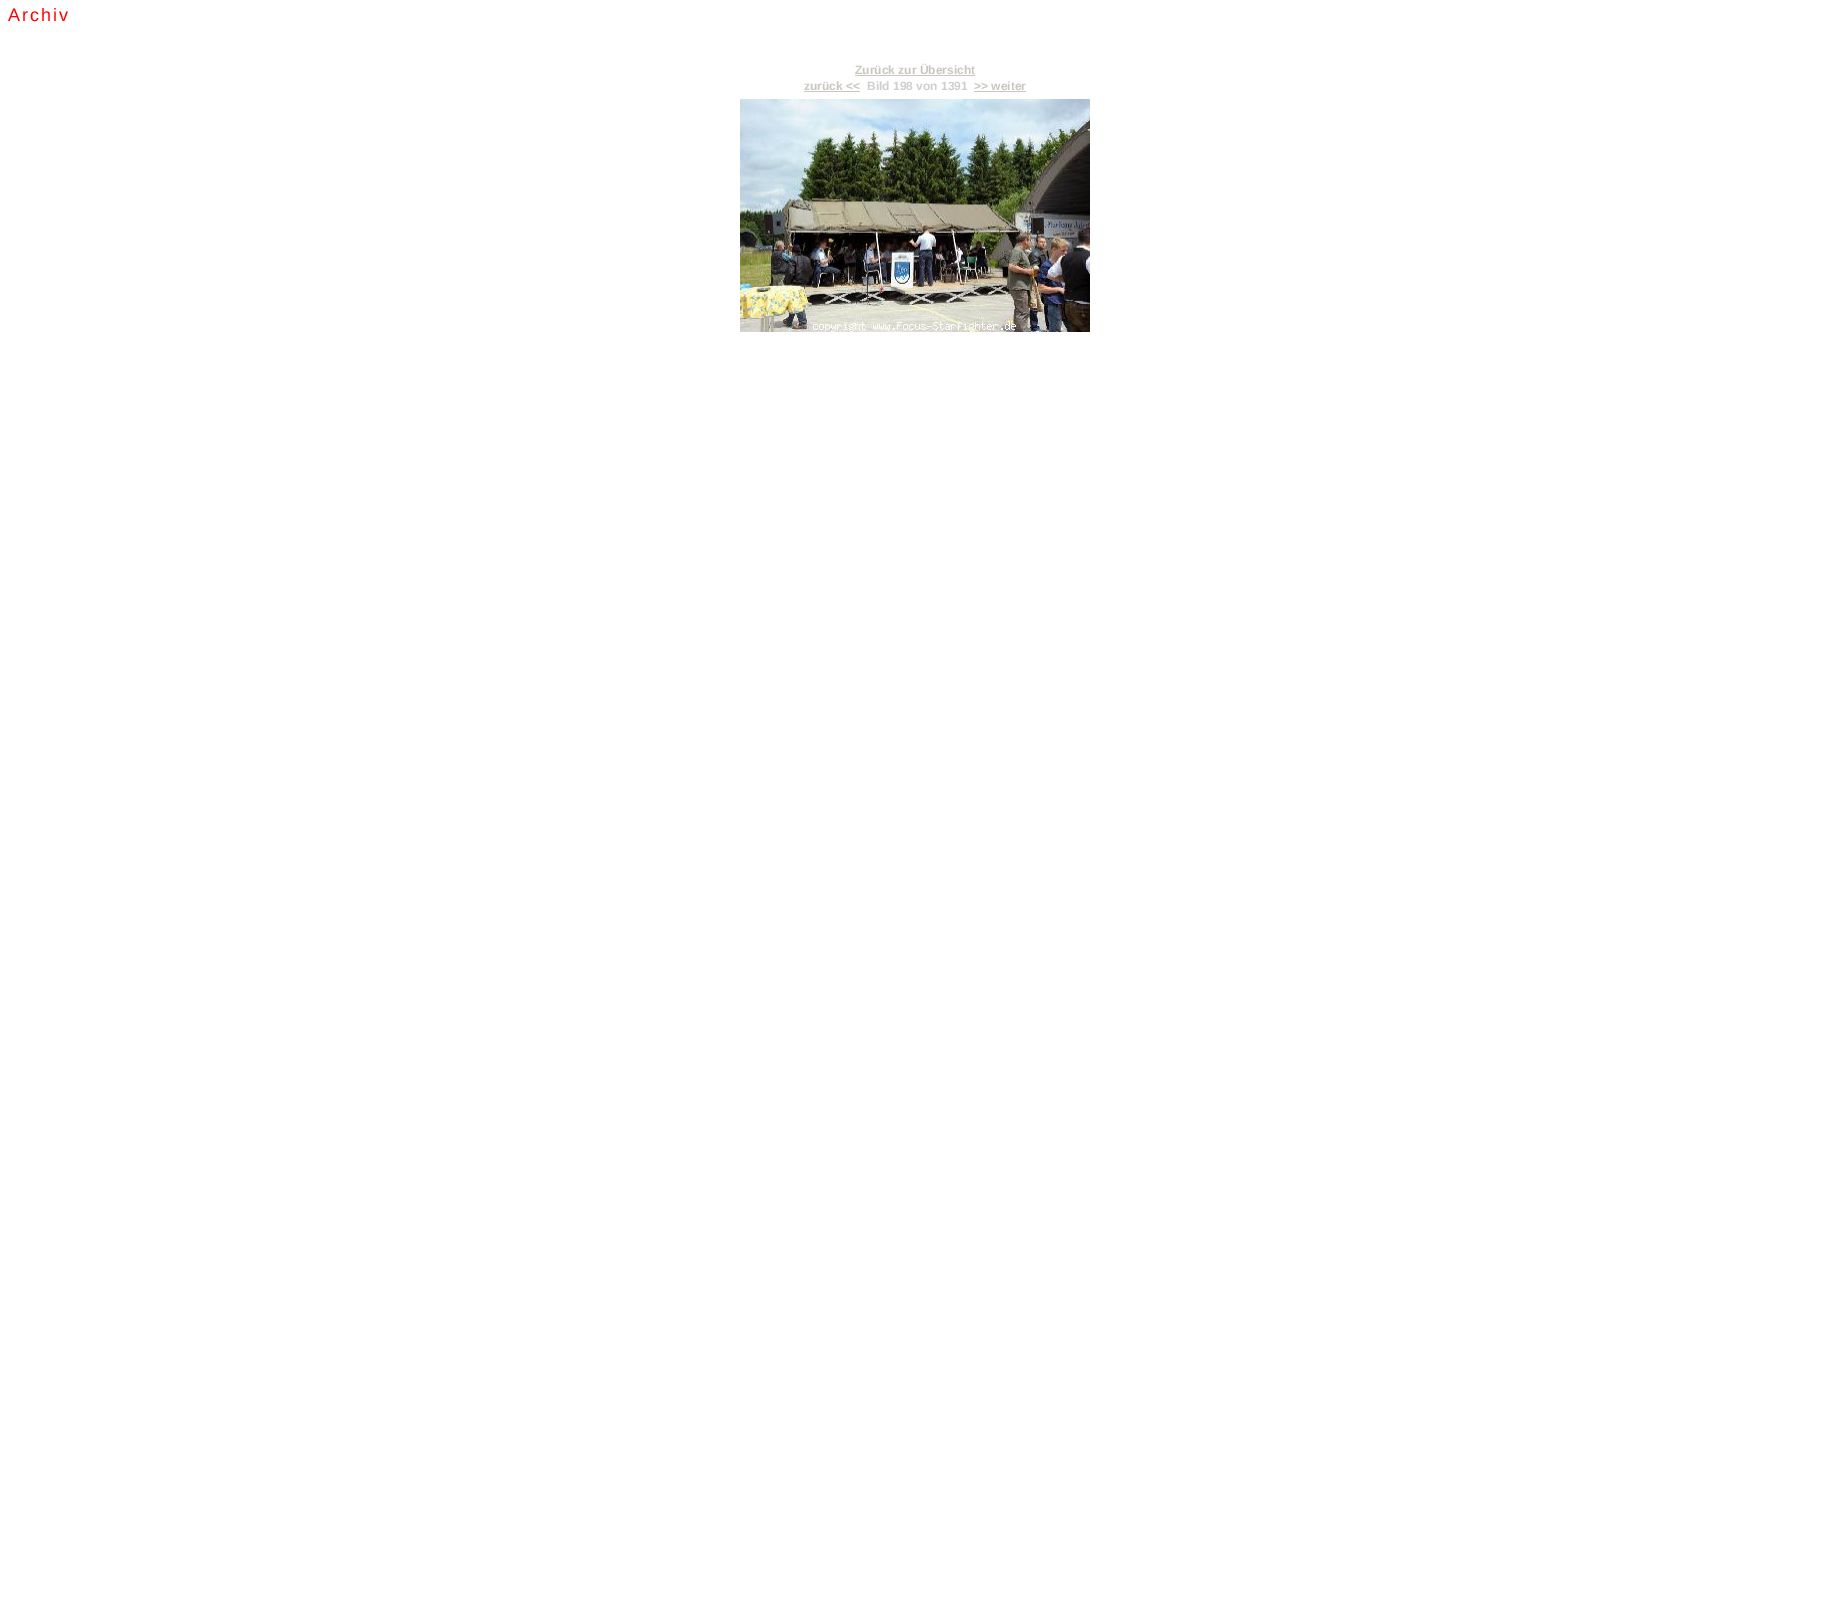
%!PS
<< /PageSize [1830 1619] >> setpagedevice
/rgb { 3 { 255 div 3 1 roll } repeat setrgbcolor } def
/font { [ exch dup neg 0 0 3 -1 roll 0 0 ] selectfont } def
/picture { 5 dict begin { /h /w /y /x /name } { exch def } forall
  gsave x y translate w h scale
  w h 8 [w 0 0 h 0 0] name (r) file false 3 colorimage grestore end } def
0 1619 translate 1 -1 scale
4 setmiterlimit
255 255 255 rgb
0 0 1830 1619 rectfill
[
  [855 75 120 1 202 199 193]
  [804 91 56 1 202 199 193]
  [974 91 52 1 202 199 193]
] { aload pop rgb rectfill } forall
(img/1.rgb) 740 99 350 233 picture
/LiberationSans-Regular 18 font
255 0 0 rgb
8 21 moveto 2 0 (Archiv) ashow
/LiberationSans-Bold 12 font
202 199 193 rgb
855 74 moveto (Zurück zur Übersicht) show
804 90 moveto (zurück <<) show
207 207 207 rgb
867 90 moveto (Bild 198 von 1391) show
202 199 193 rgb
974 90 moveto (>> weiter) show
showpage
